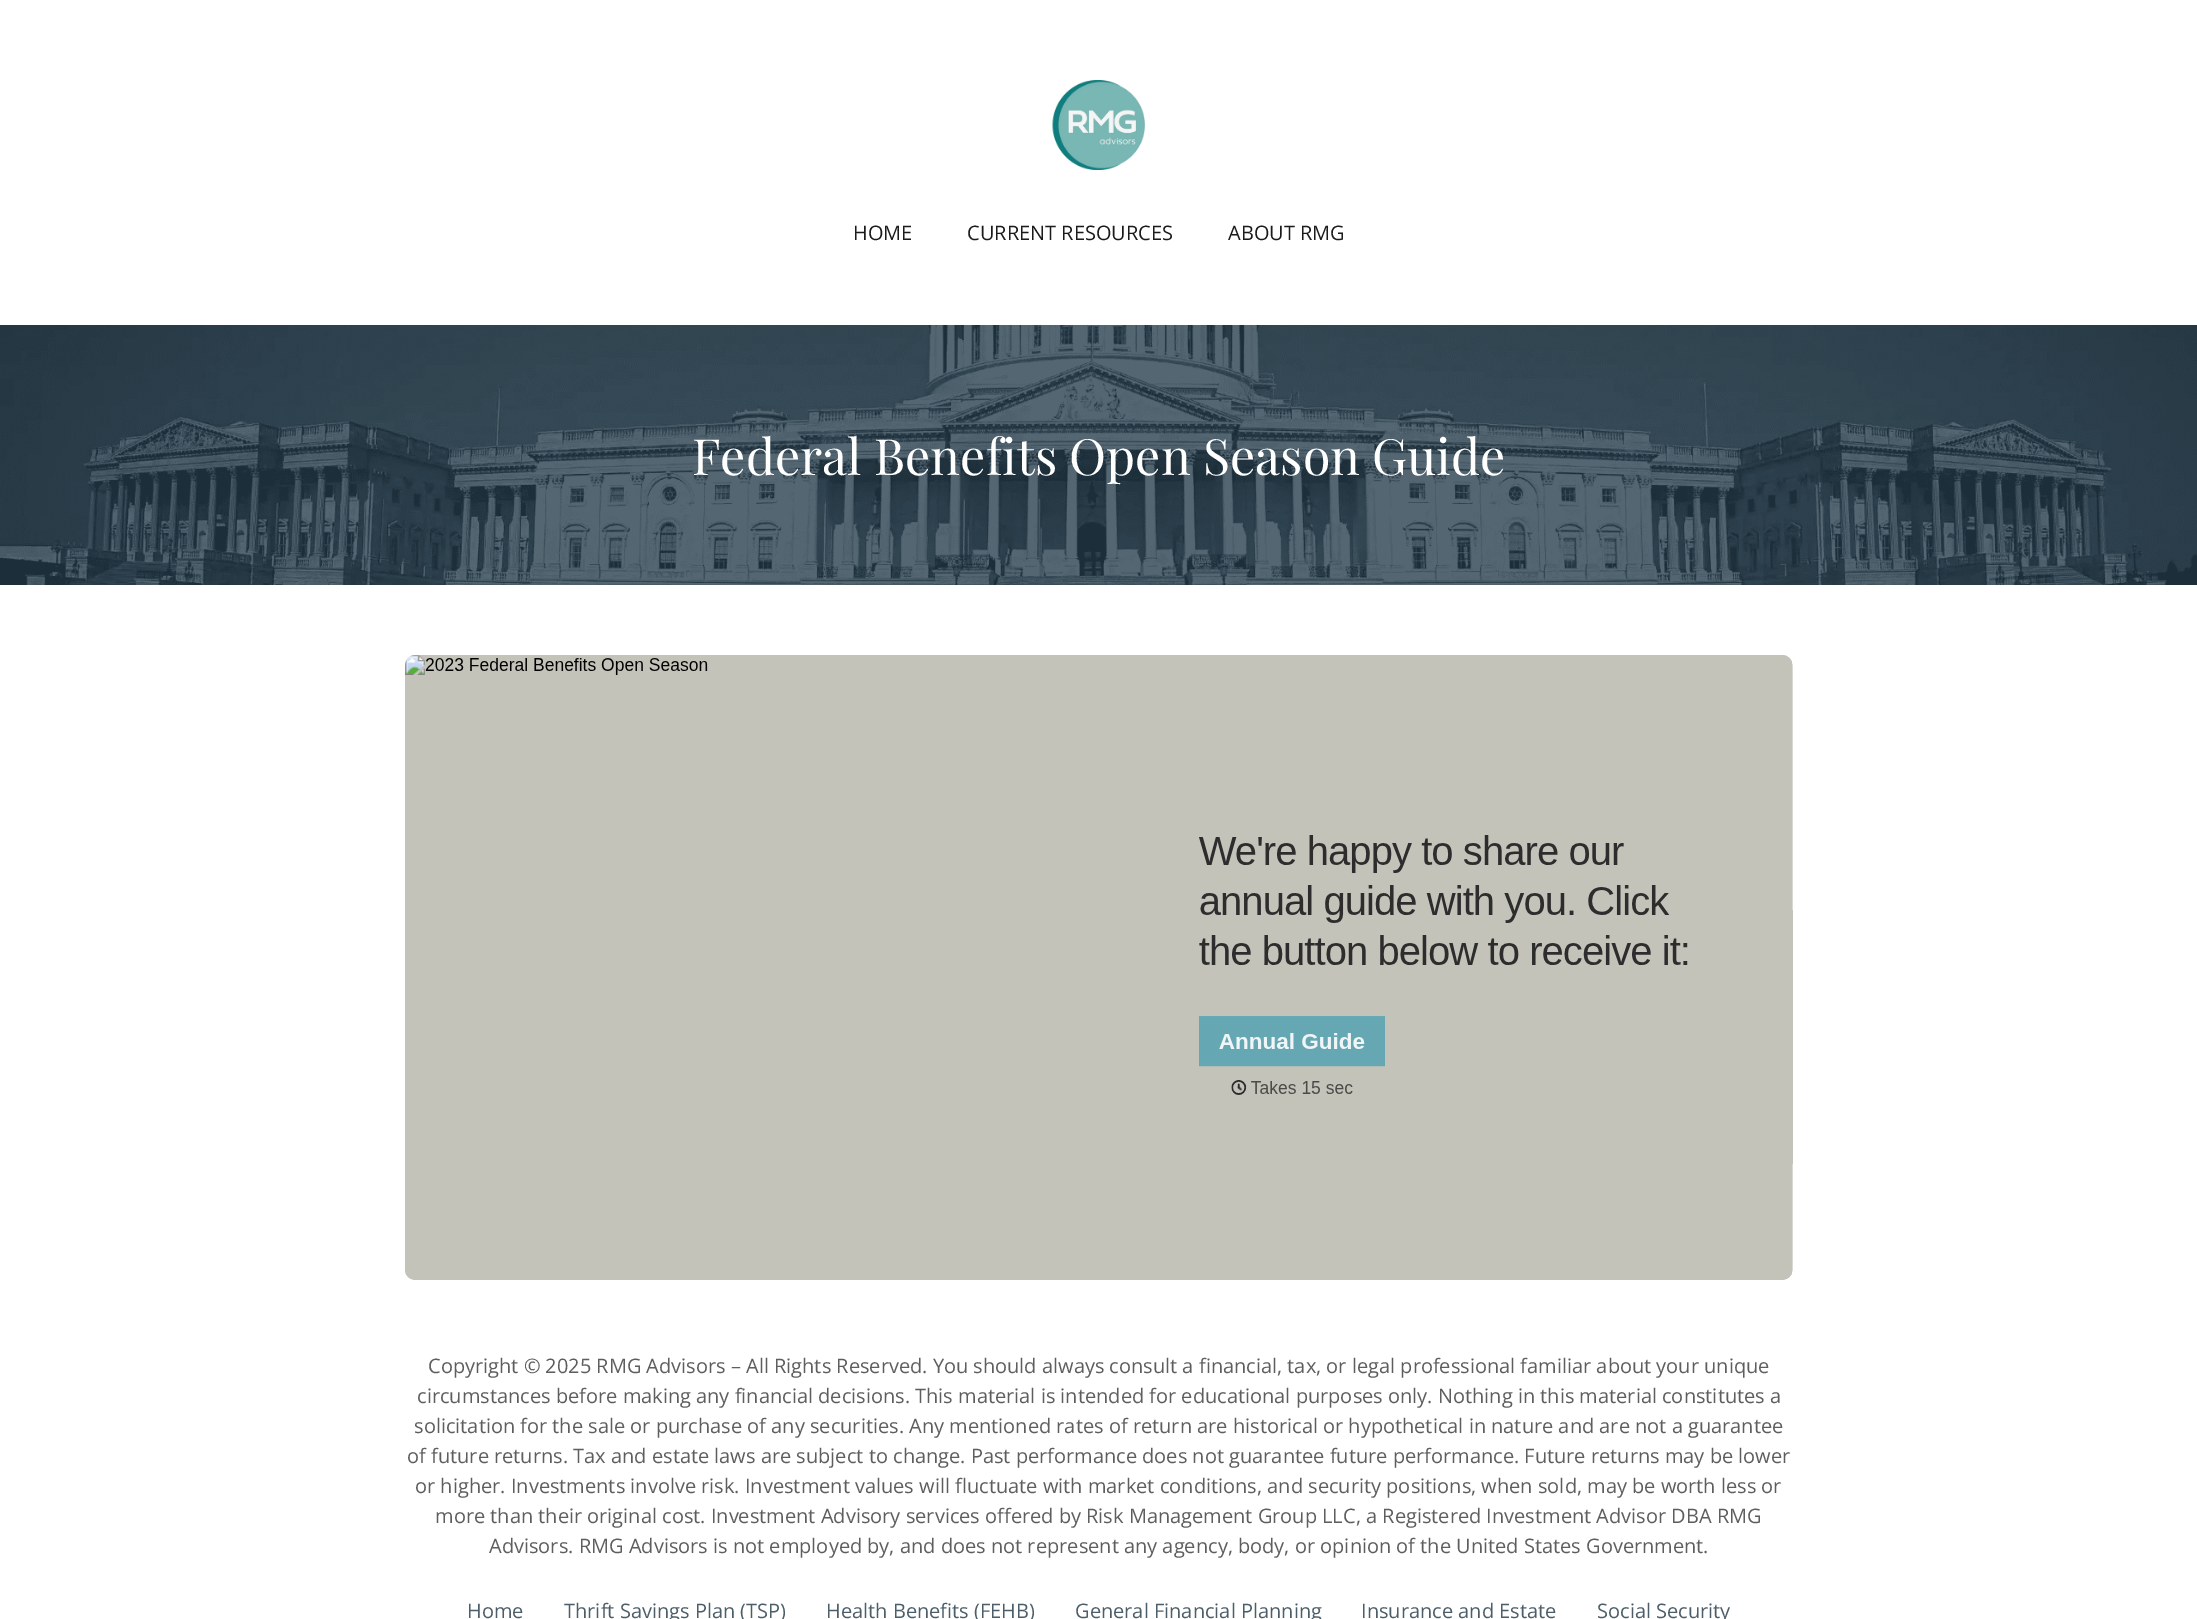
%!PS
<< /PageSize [2197 1619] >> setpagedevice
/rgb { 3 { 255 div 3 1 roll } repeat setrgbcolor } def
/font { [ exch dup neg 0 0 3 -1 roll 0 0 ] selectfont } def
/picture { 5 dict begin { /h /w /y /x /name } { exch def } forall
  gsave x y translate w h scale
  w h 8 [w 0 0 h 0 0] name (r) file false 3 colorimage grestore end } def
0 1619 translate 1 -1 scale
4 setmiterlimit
255 255 255 rgb
0 0 2197 1619 rectfill
(img/1.rgb) 1052 80 93 90 picture
(img/2.rgb) 0 325 2197 260 picture
(img/3.rgb) 405 655 1388 625 picture
/OpenSans-Regular 20 font
27 27 27 rgb
[
  [(HOME) 853 240]
  [(CURRENT RESOURCES) 967 240]
  [(ABOUT RMG) 1228 240]
] { aload pop moveto show } forall
/PlayfairDisplay-Regular 50 font
255 255 255 rgb
692 475 moveto (Federal Benefits Open Season Guide) show
/OpenSans-Regular 20 font
94 94 94 rgb
[
  [(Copyright © 2025 RMG Advisors – All Rights Reserved. You should always consult a financial, tax, or legal professional familiar about your unique) 428 1373]
  [(circumstances before making any financial decisions. This material is intended for educational purposes only. Nothing in this material constitutes a) 417 1403]
  [(solicitation for the sale or purchase of any securities. Any mentioned rates of return are historical or hypothetical in nature and are not a guarantee) 414 1433]
  [(of future returns. Tax and estate laws are subject to change. Past performance does not guarantee future performance. Future returns may be lower) 407 1463]
  [(or higher. Investments involve risk. Investment values will fluctuate with market conditions, and security positions, when sold, may be worth less or) 415 1493]
  [(more than their original cost. Investment Advisory services offered by Risk Management Group LLC, a Registered Investment Advisor DBA RMG) 435 1523]
  [(Advisors. RMG Advisors is not employed by, and does not represent any agency, body, or opinion of the United States Government.) 489 1553]
] { aload pop moveto show } forall
76 94 105 rgb
[
  [(Home) 467 1618]
  [(Thrift Savings Plan \(TSP\)) 564 1618]
  [(Health Benefits \(FEHB\)) 826 1618]
  [(General Financial Planning) 1075 1618]
  [(Insurance and Estate) 1361 1618]
  [(Social Security) 1597 1618]
] { aload pop moveto show } forall
showpage
